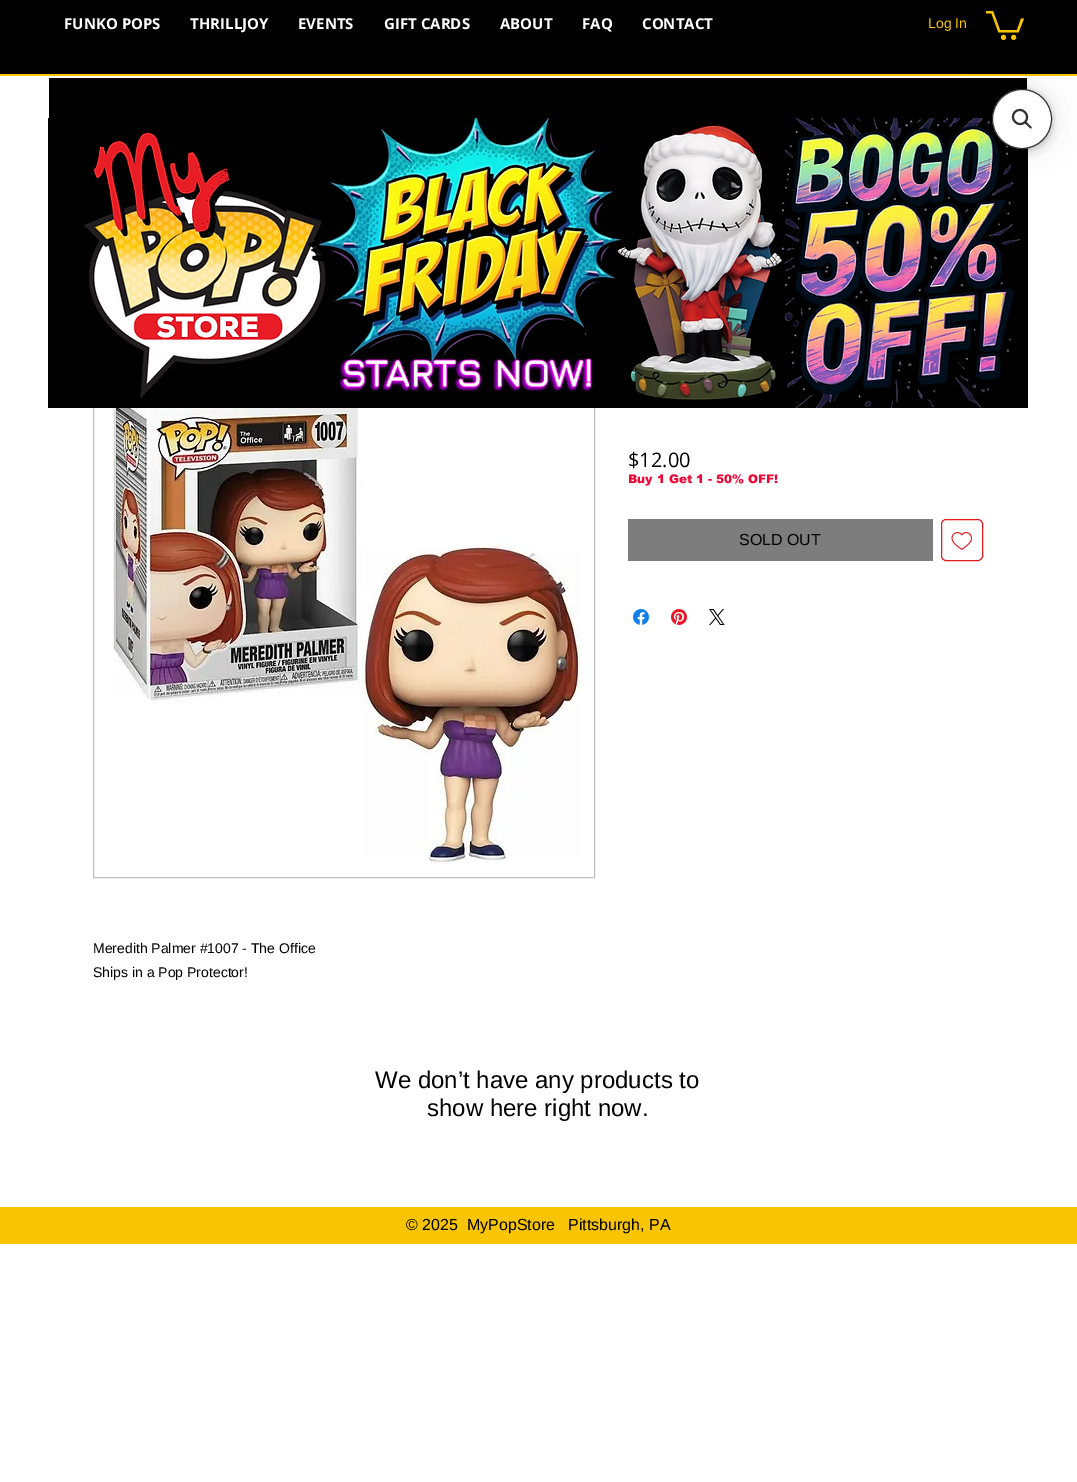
%!PS
<< /PageSize [1077 1482] /PageUsesTransparency true >> setpagedevice
/rgb { 3 { 255 div 3 1 roll } repeat setrgbcolor } def
/font { [ exch dup neg 0 0 3 -1 roll 0 0 ] selectfont } def
/alpha { dup .setfillconstantalpha .setstrokeconstantalpha } def
/circle { newpath 0 360 arc closepath } def
/roundrect { 5 dict begin { /r /h /w /y /x } { exch def } forall
  x r add y moveto x w add y 2 copy h add r arct x w add y h add x 1 index r arct
  x y h add x y r arct x y 2 copy exch w add exch r arct closepath end } def
/shadow { 12 dict begin { /a /b /q /h /w /y /x } { exch def } forall gsave /was 0 def
  9 -2 -9 { dup b mul 4 div /e exch def 1 sub .425 mul 2.718 exch exp 1 add a .99 .min exch div /now exch def
    1 1 now sub 1 was sub div sub alpha /was now def
    w h .min e 2 mul add 0 gt { x e sub y e sub w e 2 mul add h e 2 mul add
      q e add b .6 mul add w h .min 2 div e add .min 0 .max roundrect fill } if } for grestore end } def
/picture { 5 dict begin { /h /w /y /x /name } { exch def } forall
  gsave x y translate w h scale
  w h 8 [w 0 0 h 0 0] name (r) file false 3 colorimage grestore end } def
0 .pushpdf14devicefilter
0 1482 translate 1 -1 scale
4 setmiterlimit
255 255 255 rgb
0 0 1077 1482 rectfill
0 0 0 rgb
0 0 1077 74 rectfill
249 196 2 rgb
0 74 1077 2 rectfill
1024 18.5 moveto 1018.5 32.5 lineto 998.5 32.5 lineto 991.5 13.5 lineto 986 13.5 lineto 986 11 lineto 993 11 lineto 1000 30 lineto 1017 30 lineto 1021 18.5 lineto fill
1013.6 37.4 2.5 circle fill
1003.5 37.4 2.5 circle fill
0 0 0 rgb
49 78 978 40 rectfill
192 192 192 rgb
93.5 364.5 501 513 rectstroke
(img/1.rgb) 48 118 980 290 picture
125 125 125 rgb
628 519 305 42 rectfill
226 28 33 rgb
941.5 519.5 41 41 4.5 roundrect stroke
(img/2.rgb) 951 532 22 18 picture
(img/3.rgb) 633 609 16 16 picture
(img/4.rgb) 671 609 16 16 picture
(img/5.rgb) 709 609 16 16 picture
(img/6.rgb) 112 408 470 457 picture
249 196 2 rgb
0 1207 1077 37 rectfill
0 0 0 rgb
992 93 60 60 30 4 0.05 shadow
992 91 60 60 30 4 0.15 shadow
992 89 60 60 30 15 0.1 shadow
255 255 255 rgb
1022 119 29.5 circle gsave fill grestore
51 51 51 rgb
stroke
2 setlinewidth
1015 112 moveto 1021.5 105.5 1031.5 115.5 1025 122 curveto 1018.5 128.5 1008.5 118.5 1015 112 curveto closepath stroke
1024 122.5 moveto 1025.5 121 lineto 1031.5 127 lineto 1032 128 1030.5 129 1030 128 curveto closepath fill
/OpenSans-Bold 15 font
255 255 255 rgb
[
  [(FUNKO POPS) 64 29]
  [(THRILLJOY) 190 29]
  [(EVENTS) 298 29]
  [(GIFT CARDS) 384 29]
  [(ABOUT) 500 29]
  [(FAQ) 582 29]
  [(CONTACT) 642 29]
] { aload pop moveto show } forall
/LiberationSans-Regular 14 font
249 196 2 rgb
928 28 moveto (Log In) show
/OpenSans-Regular 20 font
0 0 0 rgb
628 467 moveto ($12.00) show
/arial-Black 12 font
240 5 52 rgb
628 483 moveto (Buy 1 Get 1 - 50% OFF!) show
/LiberationSans-Regular 16 font
0 0 0 rgb
739 545 moveto (SOLD OUT) show
/LiberationSans-Regular 14 font
93 953 moveto (Meredith Palmer #1007 - The Office) show
93 977 moveto (Ships in a Pop Protector!) show
/LiberationSans-Regular 24 font
375 1088 moveto (We don’t have any products to) show
427 1116 moveto (show here right now.) show
/LiberationSans-Regular 16 font
406 1230 moveto (© 2025  MyPopStore   Pittsburgh, PA) show
.poppdf14devicefilter showpage
